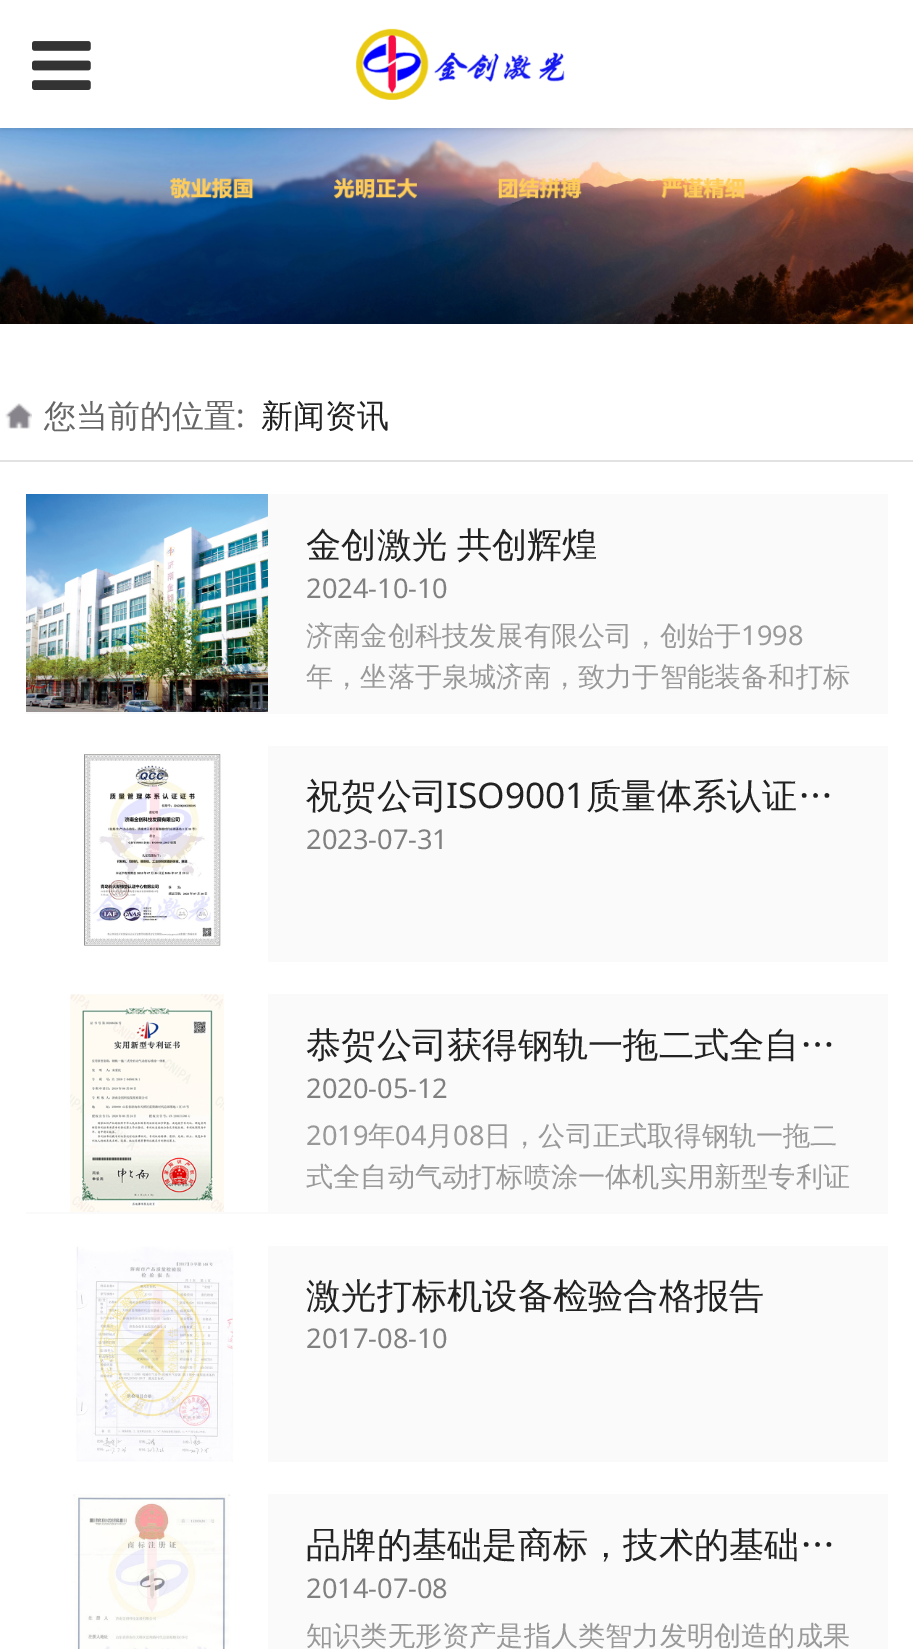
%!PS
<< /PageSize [913 1649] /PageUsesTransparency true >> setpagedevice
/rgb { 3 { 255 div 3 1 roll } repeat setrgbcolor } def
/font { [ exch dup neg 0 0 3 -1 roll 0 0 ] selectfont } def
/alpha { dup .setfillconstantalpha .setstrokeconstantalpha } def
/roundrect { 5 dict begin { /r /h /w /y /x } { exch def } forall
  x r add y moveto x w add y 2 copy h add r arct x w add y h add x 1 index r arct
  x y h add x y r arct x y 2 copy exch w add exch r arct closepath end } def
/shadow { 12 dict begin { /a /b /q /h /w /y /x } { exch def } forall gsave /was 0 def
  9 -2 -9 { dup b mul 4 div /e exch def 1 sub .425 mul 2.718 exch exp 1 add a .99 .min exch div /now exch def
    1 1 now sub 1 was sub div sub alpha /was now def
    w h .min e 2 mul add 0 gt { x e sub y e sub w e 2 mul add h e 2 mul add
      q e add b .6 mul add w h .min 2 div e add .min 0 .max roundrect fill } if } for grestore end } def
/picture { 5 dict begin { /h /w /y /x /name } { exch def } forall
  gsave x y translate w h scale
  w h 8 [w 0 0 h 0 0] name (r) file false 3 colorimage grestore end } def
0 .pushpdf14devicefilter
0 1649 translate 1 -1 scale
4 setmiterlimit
255 255 255 rgb
0 0 913 1649 rectfill
(img/3.rgb) 0 128 913 196 picture
0 0 0 rgb
0 2 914 128 0 2 0.1 shadow
255 255 255 rgb
0 0 913 128 rectfill
(img/1.rgb) 32 41 59 49 picture
(img/2.rgb) 356 28 209 72 picture
(img/4.rgb) 5 403 27 26 picture
226 226 226 rgb
0 460 913 2 rectfill
250 250 250 rgb
26 494 862 220 rectfill
(img/5.rgb) 26 494 242 218 picture
268 746 620 216 rectfill
(img/6.rgb) 26 746 242 216 picture
26 994 862 220 rectfill
(img/7.rgb) 26 994 242 218 picture
268 1246 620 216 rectfill
(img/8.rgb) 26 1246 242 216 picture
268 1494 620 155 rectfill
(img/9.rgb) 26 1494 242 155 picture
/WenQuanYiZenHei-Medium 32 font
102 102 102 rgb
44 427 moveto (您当前的位置) show
/NotoSans-Regular 32 font
236 427 moveto (:) show
/WenQuanYiZenHei-Medium 32 font
34 34 34 rgb
261 427 moveto (新闻资讯) show
/WenQuanYiZenHei-Medium 35.25 font
306 557 moveto -1 0 32 (金创激光 共创辉煌) widthshow
/NotoSans-Regular 27.2 font
128 128 128 rgb
306 598 moveto (2024-10-10) show
/WenQuanYiZenHei-Medium 27.2 font
153 153 153 rgb
306 645 moveto (济南金创科技发展有限公司，创始于) show
/NotoSans-Regular 27.2 font
741 645 moveto (1998) show
/WenQuanYiZenHei-Medium 27.2 font
306 686 moveto (年，坐落于泉城济南，致力于智能装备和打标) show
/WenQuanYiZenHei-Medium 35.25 font
34 34 34 rgb
306 808 moveto (祝贺公司) show
/NotoSans-Regular 35.25 font
446 808 moveto (ISO9001) show
/WenQuanYiZenHei-Medium 35.25 font
586 808 moveto (质量体系认证…) show
/NotoSans-Regular 27.2 font
128 128 128 rgb
306 849 moveto (2023-07-31) show
/WenQuanYiZenHei-Medium 35.25 font
34 34 34 rgb
306 1057 moveto (恭贺公司获得钢轨一拖二式全自…) show
/NotoSans-Regular 27.2 font
128 128 128 rgb
306 1098 moveto (2020-05-12) show
153 153 153 rgb
306 1145 moveto (2019) show
/WenQuanYiZenHei-Medium 27.2 font
368 1145 moveto (年) show
/NotoSans-Regular 27.2 font
395 1145 moveto (04) show
/WenQuanYiZenHei-Medium 27.2 font
426 1145 moveto (月) show
/NotoSans-Regular 27.2 font
453 1145 moveto (08) show
/WenQuanYiZenHei-Medium 27.2 font
484 1145 moveto (日，公司正式取得钢轨一拖二) show
306 1186 moveto (式全自动气动打标喷涂一体机实用新型专利证) show
/WenQuanYiZenHei-Medium 35.25 font
34 34 34 rgb
306 1308 moveto (激光打标机设备检验合格报告) show
/NotoSans-Regular 27.2 font
128 128 128 rgb
306 1348 moveto (2017-08-10) show
/WenQuanYiZenHei-Medium 35.25 font
34 34 34 rgb
306 1557 moveto (品牌的基础是商标，技术的基础…) show
/NotoSans-Regular 27.2 font
128 128 128 rgb
306 1598 moveto (2014-07-08) show
/WenQuanYiZenHei-Medium 27.2 font
153 153 153 rgb
306 1645 moveto (知识类无形资产是指人类智力发明创造的成果) show
.poppdf14devicefilter showpage
